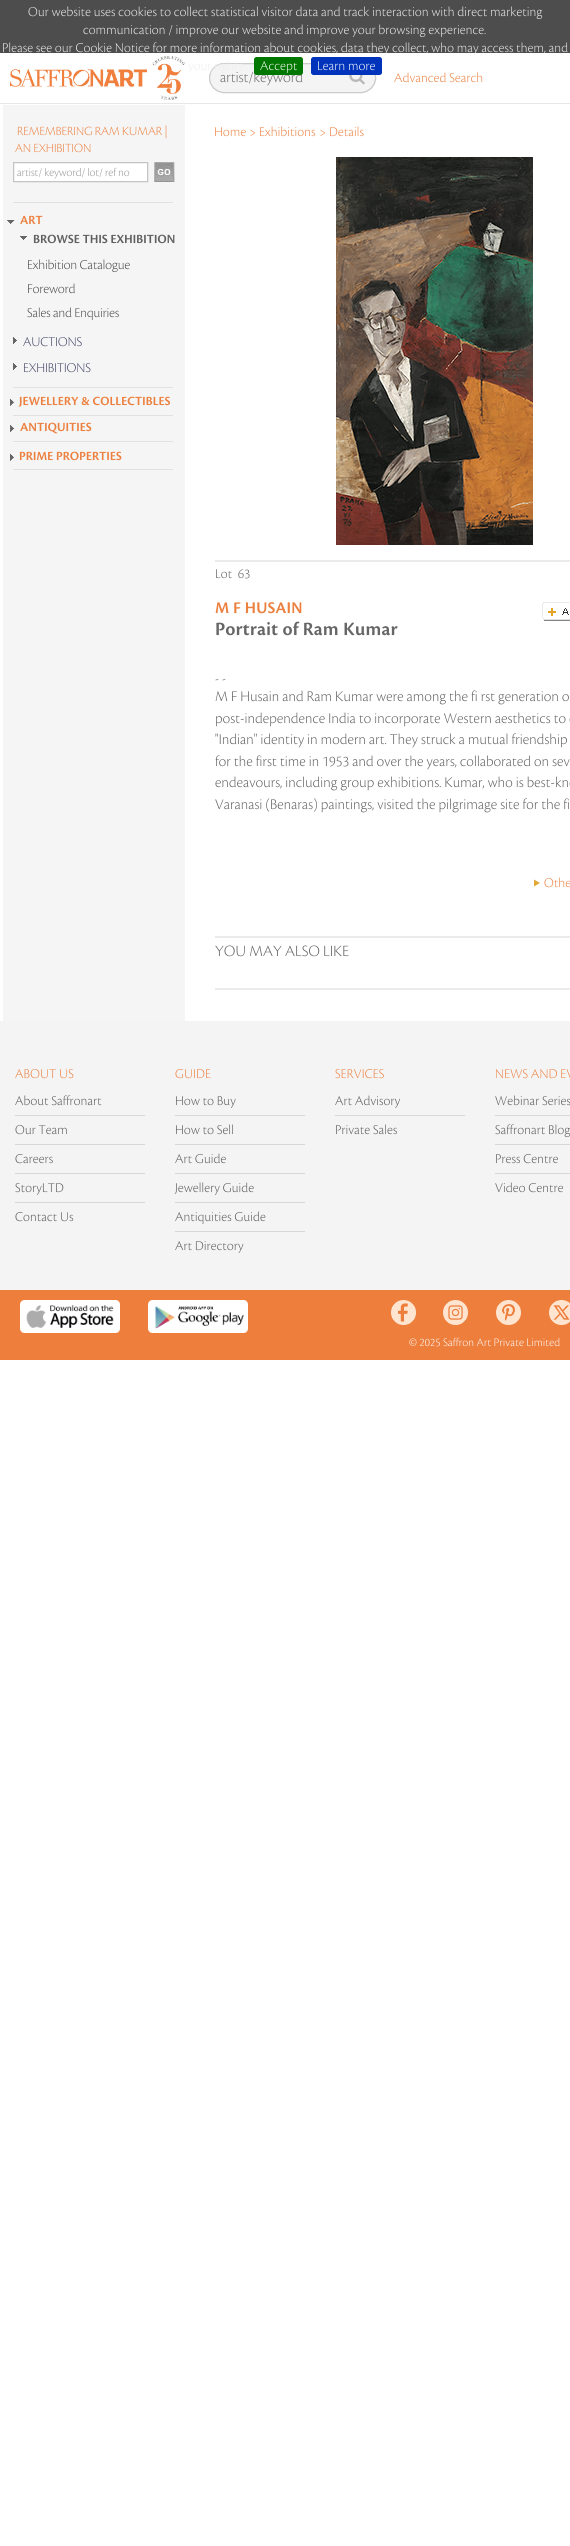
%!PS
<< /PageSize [570 2546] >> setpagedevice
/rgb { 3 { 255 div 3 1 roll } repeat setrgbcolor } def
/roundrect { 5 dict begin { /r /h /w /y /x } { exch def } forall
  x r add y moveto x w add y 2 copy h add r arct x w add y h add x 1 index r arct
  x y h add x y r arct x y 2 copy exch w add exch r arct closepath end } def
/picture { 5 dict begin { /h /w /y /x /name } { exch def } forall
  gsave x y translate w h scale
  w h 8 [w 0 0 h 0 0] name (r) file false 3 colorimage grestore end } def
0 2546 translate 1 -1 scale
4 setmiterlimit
255 255 255 rgb
0 0 570 2546 rectfill
77 77 77 rgb
0 0 570 53 rectfill
(img/1.rgb) 28 6 515 14 picture
(img/2.rgb) 83 24 403 14 picture
(img/3.rgb) 3 42 565 13 picture
244 244 244 rgb
209.5 63.5 166 29 14.5 roundrect gsave fill grestore
204 204 204 rgb
stroke
(img/8.rgb) 220 71 83 15 picture
(img/4.rgb) 188 60 54 13 picture
0 119 0 rgb
254 57 49 18 3 roundrect fill
(img/5.rgb) 260 61 37 12 picture
0 51 187 rgb
311 57 71 18 3 roundrect fill
(img/6.rgb) 318 61 57 10 picture
231 231 231 rgb
0 103 570 1 rectfill
(img/7.rgb) 10 56 175 44 picture
(img/9.rgb) 349 75 16 10 picture
(img/10.rgb) 394 72 89 11 picture
(img/11.rgb) 214 127 32 10 picture
(img/12.rgb) 250 129 6 7 picture
(img/13.rgb) 260 126 56 11 picture
(img/12.rgb) 320 129 6 7 picture
(img/14.rgb) 330 126 34 11 picture
245 245 245 rgb
3 105 182 916 rectfill
(img/15.rgb) 17 125 150 14 picture
(img/16.rgb) 15 143 76 10 picture
255 255 255 rgb
13.5 162.5 moveto 147.5 162.5 lineto 147.5 181.5 lineto 13.5 181.5 lineto closepath gsave fill grestore
198 196 199 rgb
stroke
(img/17.rgb) 17 167 113 12 picture
(img/18.rgb) 154 162 21 20 picture
224 225 226 rgb
13 202 160 1 rectfill
(img/19.rgb) 7 220 8 4 picture
(img/20.rgb) 20 215 23 10 picture
(img/21.rgb) 20 236 7 4 picture
(img/22.rgb) 33 234 142 10 picture
(img/23.rgb) 28 259 102 14 picture
(img/24.rgb) 28 283 47 11 picture
(img/25.rgb) 27 307 92 13 picture
(img/26.rgb) 13 337 4 7 picture
(img/27.rgb) 23 337 59 10 picture
(img/26.rgb) 13 363 4 7 picture
(img/28.rgb) 24 363 67 10 picture
13 387 160 1 rectfill
(img/29.rgb) 10 398 4 8 picture
(img/30.rgb) 18 396 153 11 picture
13 415 160 1 rectfill
(img/31.rgb) 10 425 5 7 picture
(img/32.rgb) 20 422 72 12 picture
13 441 160 1 rectfill
(img/29.rgb) 10 453 4 8 picture
(img/33.rgb) 19 451 103 10 picture
13 469 160 1 rectfill
(img/34.rgb) 336 157 197 388 picture
235 235 233 rgb
215 560 355 2 rectfill
(img/35.rgb) 216 569 16 10 picture
(img/36.rgb) 238 569 12 10 picture
(img/37.rgb) 215 602 87 12 picture
(img/38.rgb) 216 621 182 15 picture
(img/39.rgb) 542 602 28 19 picture
(img/40.rgb) 215 679 4 2 picture
(img/40.rgb) 222 679 4 2 picture
(img/41.rgb) 215 690 354 15 picture
(img/42.rgb) 216 712 354 15 picture
(img/43.rgb) 215 733 352 15 picture
(img/44.rgb) 215 755 355 15 picture
(img/45.rgb) 215 776 355 15 picture
(img/46.rgb) 215 798 354 15 picture
(img/47.rgb) 534 879 6 8 picture
(img/48.rgb) 544 877 26 11 picture
215 936 355 2 rectfill
215 988 355 2 rectfill
(img/49.rgb) 215 945 134 12 picture
244 244 244 rgb
0 1021 570 269 rectfill
(img/50.rgb) 15 1069 59 10 picture
216 216 216 rgb
15 1115 130 1 rectfill
(img/51.rgb) 15 1095 87 11 picture
15 1144 130 1 rectfill
(img/52.rgb) 15 1125 52 10 picture
15 1173 130 1 rectfill
(img/53.rgb) 15 1154 38 10 picture
15 1202 130 1 rectfill
(img/54.rgb) 15 1183 49 12 picture
(img/55.rgb) 15 1212 59 10 picture
(img/56.rgb) 175 1069 36 10 picture
175 1115 130 1 rectfill
(img/57.rgb) 176 1096 60 12 picture
175 1144 130 1 rectfill
(img/58.rgb) 176 1124 57 11 picture
175 1173 130 1 rectfill
(img/59.rgb) 175 1153 51 11 picture
175 1202 130 1 rectfill
(img/60.rgb) 174 1182 80 13 picture
175 1231 130 1 rectfill
(img/61.rgb) 175 1211 91 13 picture
(img/62.rgb) 175 1241 69 12 picture
(img/63.rgb) 335 1069 49 10 picture
335 1115 130 1 rectfill
(img/64.rgb) 335 1095 65 13 picture
(img/65.rgb) 336 1124 61 11 picture
(img/66.rgb) 495 1069 75 10 picture
495 1115 75 1 rectfill
(img/67.rgb) 495 1095 75 11 picture
495 1144 75 1 rectfill
(img/68.rgb) 495 1124 75 14 picture
495 1173 75 1 rectfill
(img/69.rgb) 496 1154 62 10 picture
(img/70.rgb) 495 1182 69 11 picture
238 126 60 rgb
0 1290 570 70 rectfill
(img/71.rgb) 20 1300 100 33 picture
(img/72.rgb) 148 1300 100 33 picture
(img/73.rgb) 391 1300 25 25 picture
(img/74.rgb) 443 1300 25 25 picture
(img/75.rgb) 496 1300 25 25 picture
(img/76.rgb) 549 1300 21 25 picture
(img/77.rgb) 409 1337 151 10 picture
showpage
